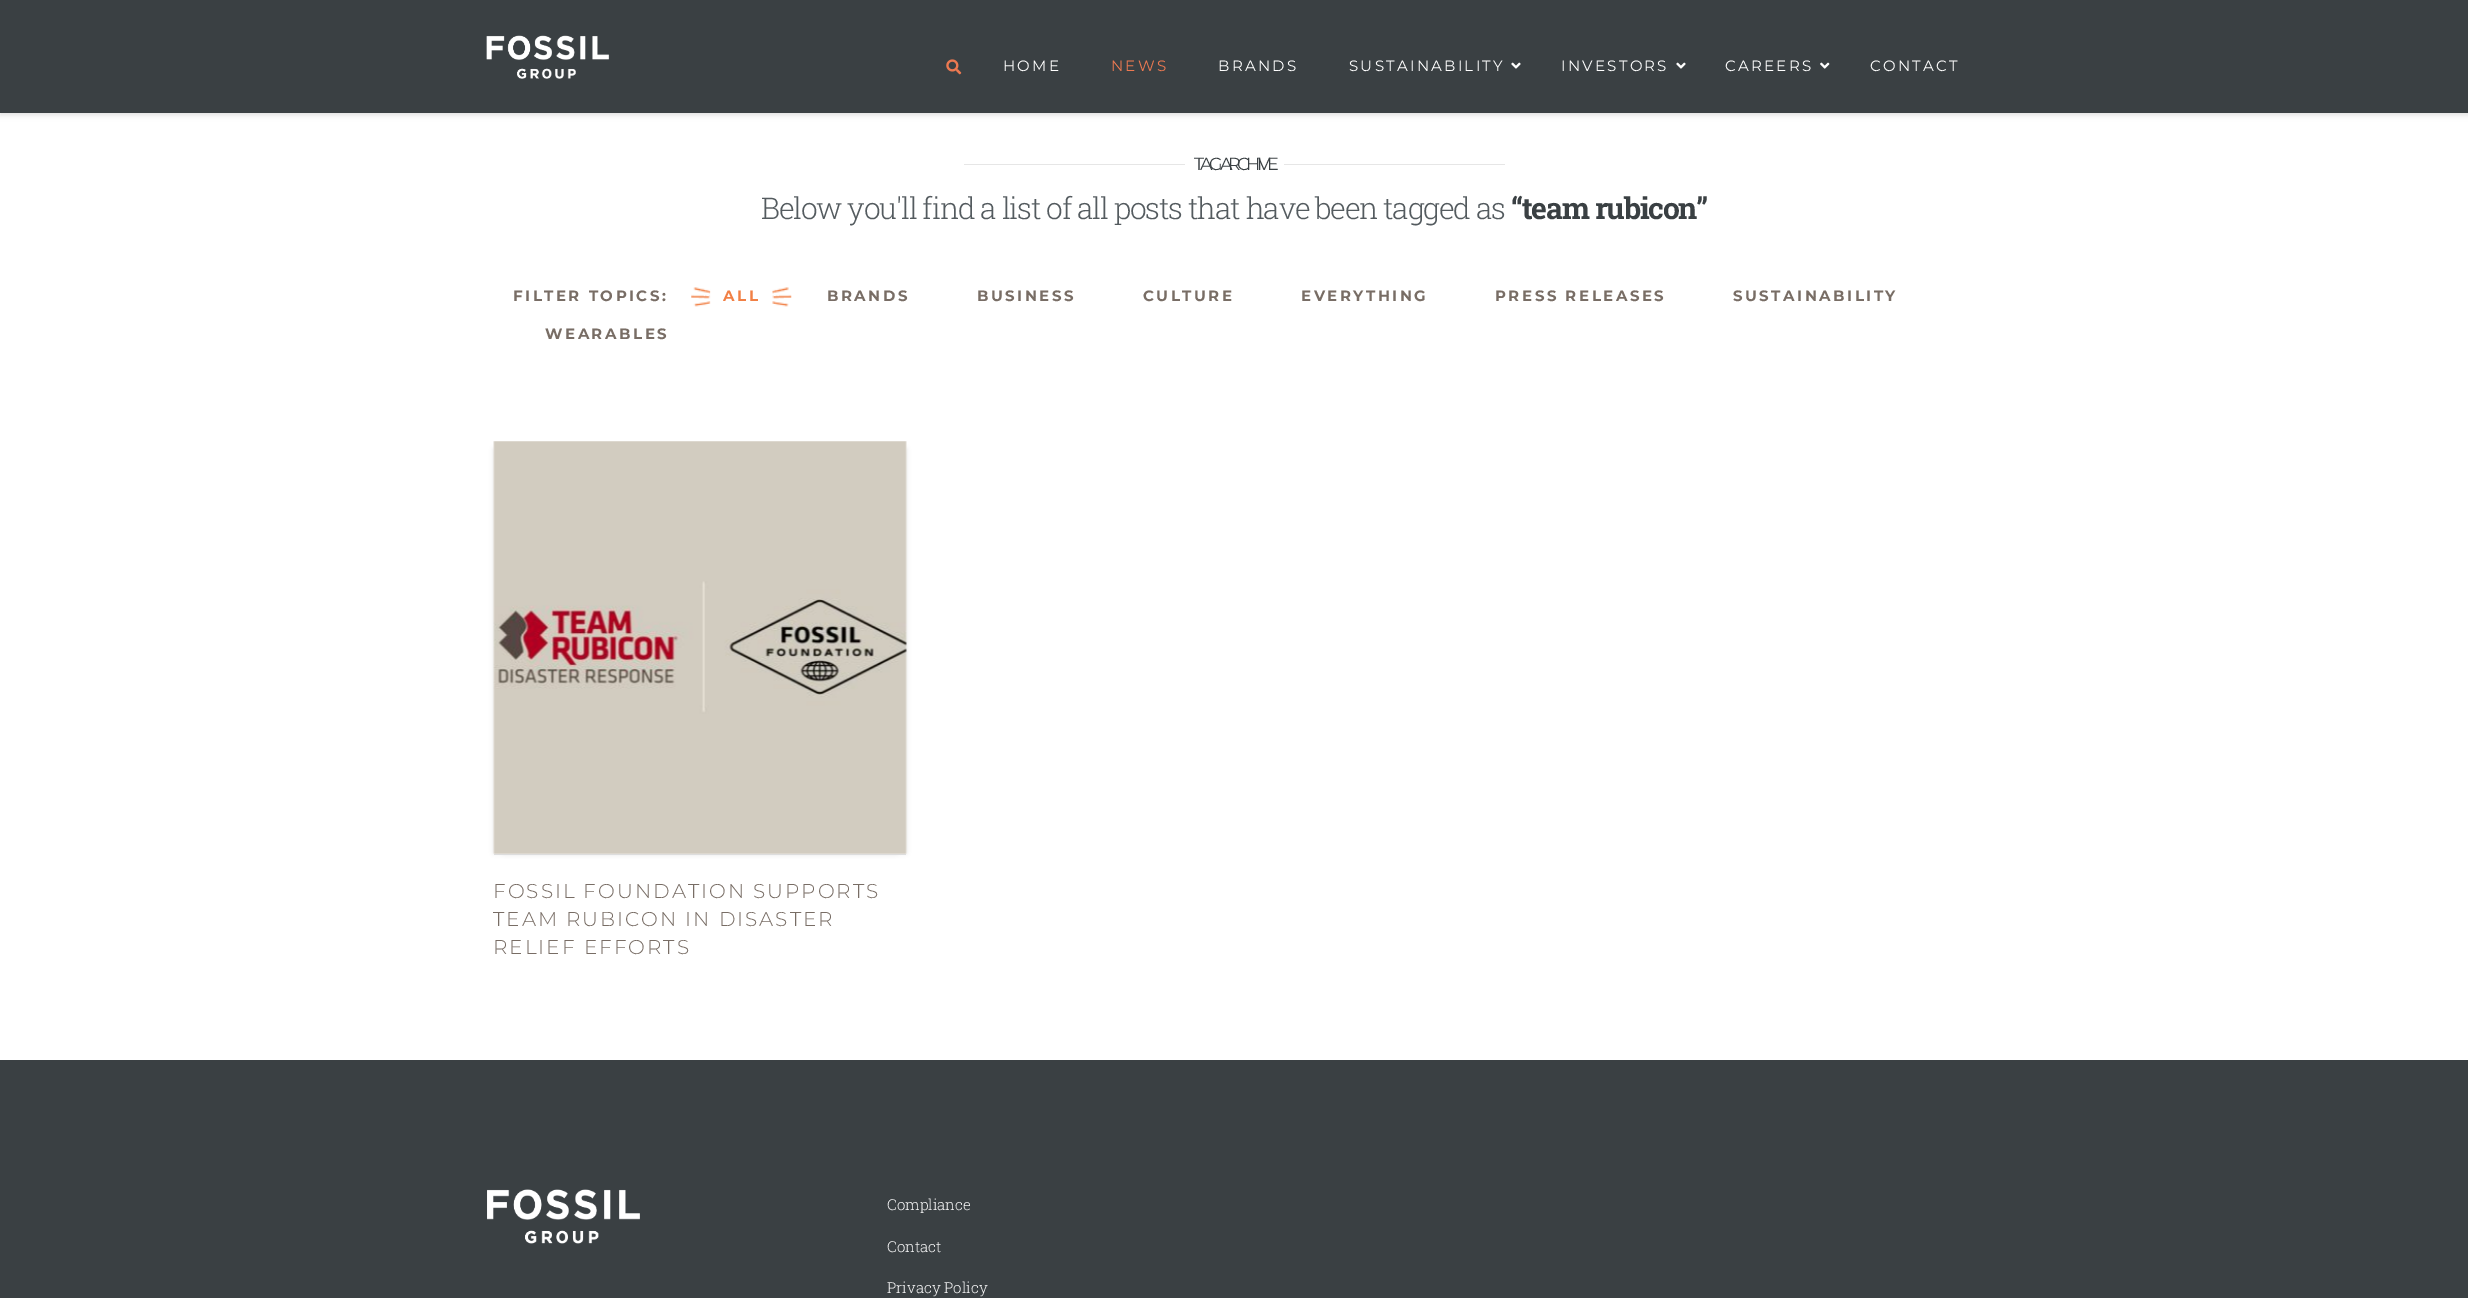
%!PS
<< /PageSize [2468 1298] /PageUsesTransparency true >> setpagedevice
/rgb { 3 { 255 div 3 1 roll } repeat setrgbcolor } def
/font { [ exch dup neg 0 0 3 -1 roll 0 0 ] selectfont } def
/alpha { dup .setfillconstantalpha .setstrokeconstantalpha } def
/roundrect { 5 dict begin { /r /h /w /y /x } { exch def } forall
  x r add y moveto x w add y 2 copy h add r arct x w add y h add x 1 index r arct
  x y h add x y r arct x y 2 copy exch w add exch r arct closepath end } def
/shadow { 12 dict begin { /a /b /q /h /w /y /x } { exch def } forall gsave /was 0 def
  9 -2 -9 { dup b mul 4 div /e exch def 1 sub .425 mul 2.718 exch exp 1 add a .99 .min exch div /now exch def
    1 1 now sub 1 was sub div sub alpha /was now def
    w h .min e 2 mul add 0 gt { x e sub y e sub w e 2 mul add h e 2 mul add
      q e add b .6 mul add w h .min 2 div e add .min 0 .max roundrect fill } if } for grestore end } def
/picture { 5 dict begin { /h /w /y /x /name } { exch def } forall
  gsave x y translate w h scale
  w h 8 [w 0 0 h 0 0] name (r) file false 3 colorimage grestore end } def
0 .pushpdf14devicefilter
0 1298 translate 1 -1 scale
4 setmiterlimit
255 255 255 rgb
0 0 2468 1298 rectfill
0 0 0 rgb
0 3 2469 112 0 3 0.13 shadow
58 64 67 rgb
0 0 2468 113 rectfill
(img/1.rgb) 486 35 124 44 picture
(img/2.rgb) 946 59 16 16 picture
(img/3.rgb) 1511 62 10 7 picture
(img/3.rgb) 1676 62 10 7 picture
(img/4.rgb) 1820 62 10 7 picture
230 230 230 rgb
964 164 221 1 rectfill
1284 164 221 1 rectfill
(img/5.rgb) 691 287 101 20 picture
0 0 0 rgb
494 449 402 404 0 2.5 0.13 shadow
504 449 402 404 0 2.5 0.13 shadow
221 221 221 rgb
494 854 412 1 rectfill
(img/6.rgb) 493 441 414 413 picture
58 64 67 rgb
0 1060 2468 238 rectfill
(img/7.rgb) 487 1189 153 55 picture
/Montserrat-Thin 15 font
255 255 255 rgb
1003 71 moveto 2.25 0 (HOME) ashow
237 121 81 rgb
1111 71 moveto 2.25 0 (NEWS) ashow
255 255 255 rgb
1218 71 moveto 2.25 0 (BRANDS) ashow
1349 71 moveto 2.25 0 (SUSTAINABILITY) ashow
1561 71 moveto 2.25 0 (INVESTORS) ashow
1725 71 moveto 2.25 0 (CAREERS) ashow
1870 71 moveto 2.25 0 (CONTACT) ashow
/Montserrat-Thin 17.5 font
58 64 67 rgb
1194 170 moveto -3.75 0 (TAG ARCHIVE) ashow
/RobotoSlab-Light 30 font
84 91 95 rgb
761 219 moveto -1.25 0 (Below you'll find a list of all posts that have been tagged as) ashow
/RobotoSlab-Bold 30 font
58 64 67 rgb
1511 219 moveto -1.25 0 (“team rubicon”) ashow
/Montserrat-Bold 15 font
120 109 101 rgb
513 301 moveto 2.5 0 (FILTER TOPICS:) ashow
241 128 69 rgb
723 301 moveto 2.5 0 (ALL) ashow
120 109 101 rgb
827 301 moveto 2.5 0 (BRANDS) ashow
977 301 moveto 2.5 0 (BUSINESS) ashow
1143 301 moveto 2.5 0 (CULTURE) ashow
1301 301 moveto 2.5 0 (EVERYTHING) ashow
1495 301 moveto 2.5 0 (PRESS RELEASES) ashow
1733 301 moveto 2.5 0 (SUSTAINABILITY) ashow
545 339 moveto 2.5 0 (WEARABLES) ashow
/Montserrat-Light 20 font
493 898 moveto 2 0 (FOSSIL FOUNDATION SUPPORTS) ashow
493 926 moveto 2 0 (TEAM RUBICON IN DISASTER) ashow
493 954 moveto 2 0 (RELIEF EFFORTS) ashow
/RobotoSlab-Light 15 font
245 245 246 rgb
[
  [(Compliance) 887 1210]
  [(Contact) 887 1252]
  [(Privacy Policy) 887 1293]
] { aload pop moveto show } forall
.poppdf14devicefilter showpage
